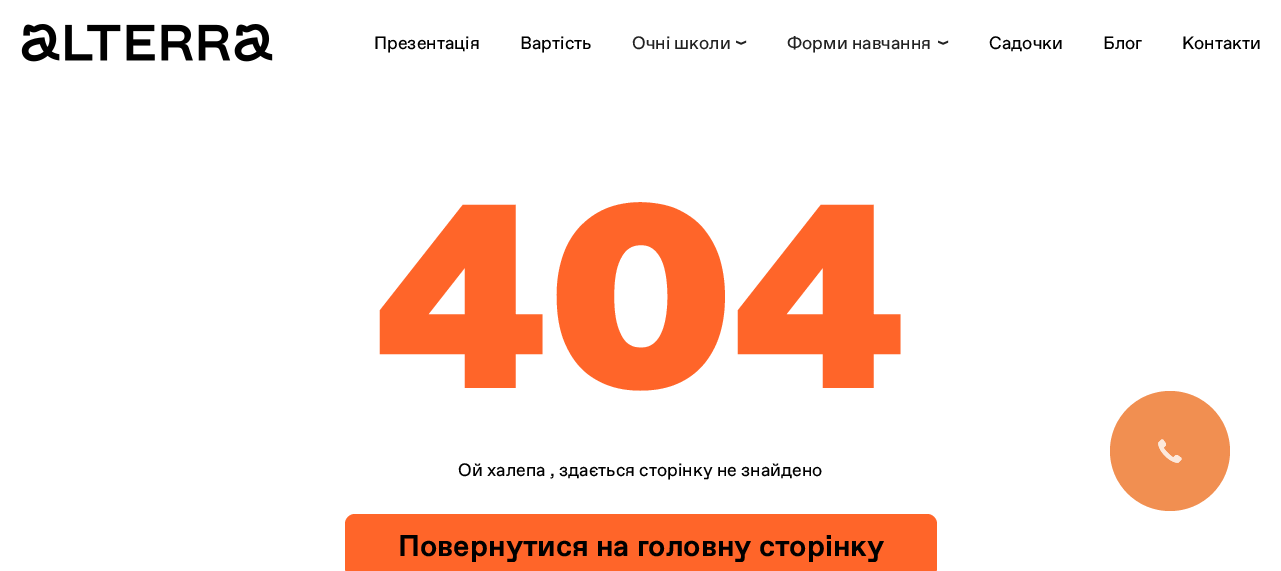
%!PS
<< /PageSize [1281 571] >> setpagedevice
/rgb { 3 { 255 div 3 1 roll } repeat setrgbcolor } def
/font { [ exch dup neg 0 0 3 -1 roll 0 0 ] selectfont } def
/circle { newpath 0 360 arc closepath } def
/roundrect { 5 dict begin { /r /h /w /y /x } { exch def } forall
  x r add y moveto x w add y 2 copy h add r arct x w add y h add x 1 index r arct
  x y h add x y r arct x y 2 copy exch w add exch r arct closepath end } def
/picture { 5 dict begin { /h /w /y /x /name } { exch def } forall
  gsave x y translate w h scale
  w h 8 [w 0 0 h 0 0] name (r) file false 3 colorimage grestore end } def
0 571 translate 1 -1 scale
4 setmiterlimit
255 255 255 rgb
0 0 1281 571 rectfill
(img/1.rgb) 21 24 252 38 picture
(img/2.rgb) 736 40 11 5 picture
(img/2.rgb) 938 40 11 5 picture
255 101 41 rgb
345 514 592 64 10 roundrect fill
241 143 81 rgb
1170 451 60 circle fill
(img/3.rgb) 1158 439 24 24 picture
/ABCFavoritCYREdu-Regular 18 font
0 0 0 rgb
374 49 moveto (Презентація) show
520 49 moveto (Вартість) show
34 34 34 rgb
632 49 moveto (Очні школи) show
787 49 moveto (Форми навчання) show
0 0 0 rgb
[
  [(Садочки) 989 49]
  [(Блог) 1103 49]
  [(Контакти) 1182 49]
] { aload pop moveto show } forall
/ABCFavoritCYREdu-Black 262 font
255 101 41 rgb
375 388 moveto (404) show
/ABCFavoritCYREdu-Regular 18 font
0 0 0 rgb
458 476 moveto (Ой халепа , здається сторінку не знайдено) show
/ABCFavoritCYREdu-Bold 30 font
398 556 moveto (Повернутися на головну сторінку) show
showpage
